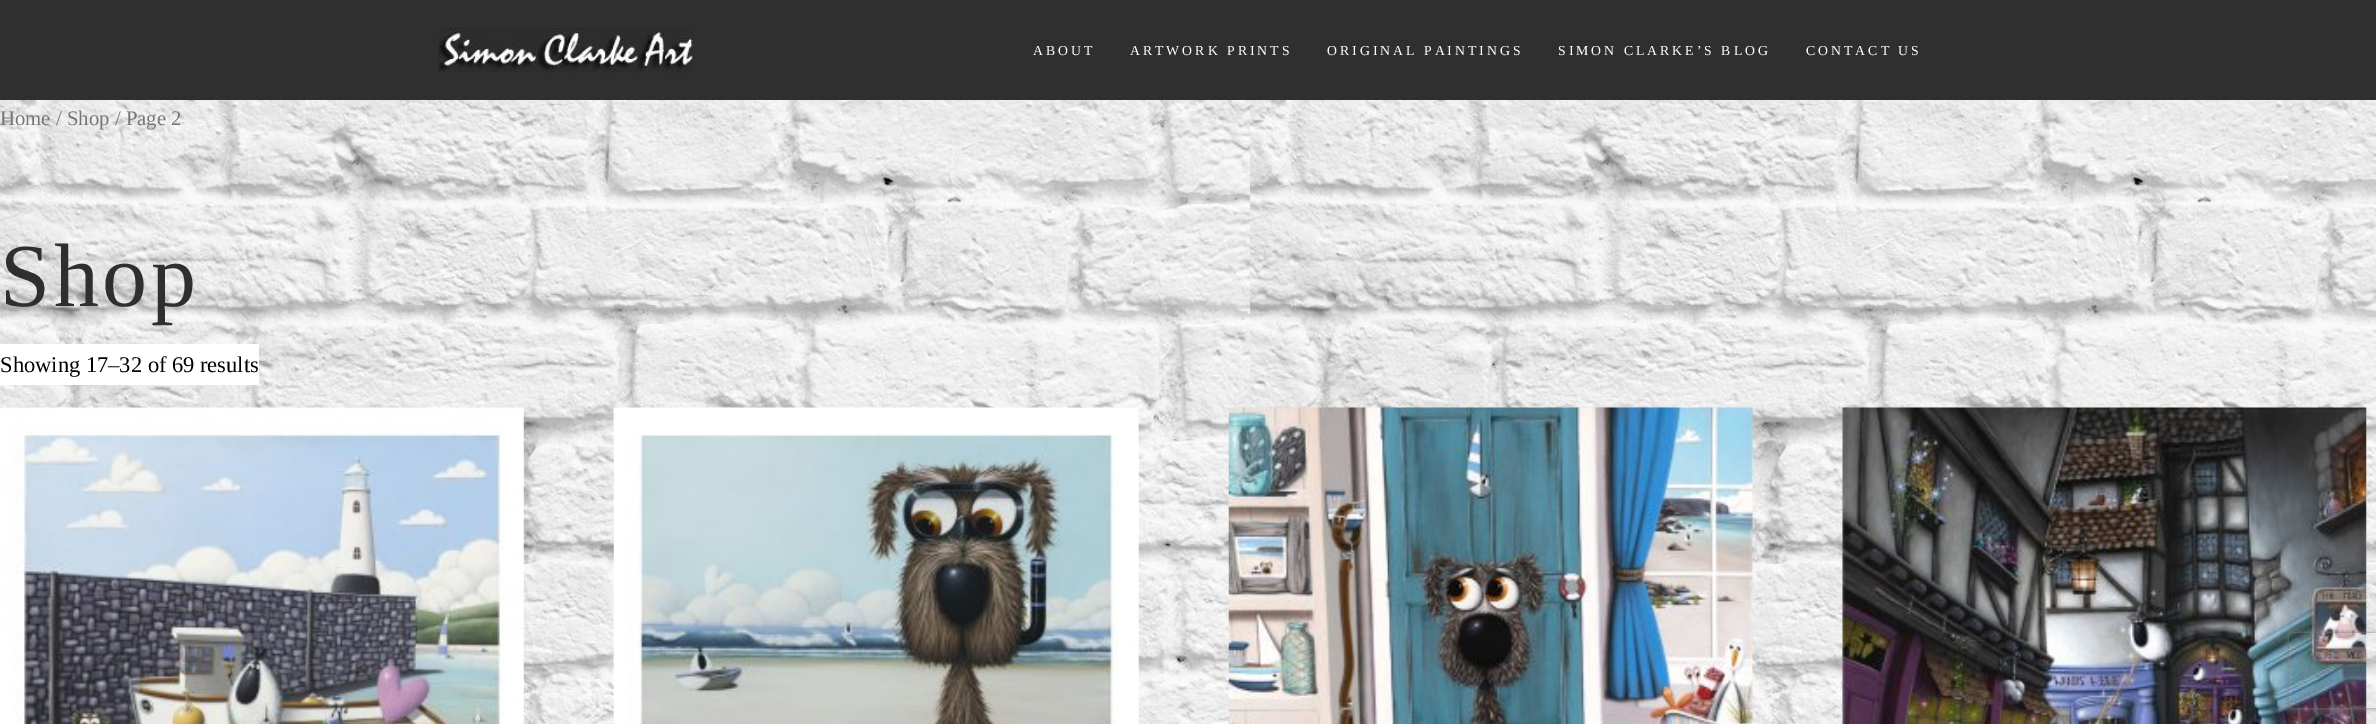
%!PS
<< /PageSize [2376 724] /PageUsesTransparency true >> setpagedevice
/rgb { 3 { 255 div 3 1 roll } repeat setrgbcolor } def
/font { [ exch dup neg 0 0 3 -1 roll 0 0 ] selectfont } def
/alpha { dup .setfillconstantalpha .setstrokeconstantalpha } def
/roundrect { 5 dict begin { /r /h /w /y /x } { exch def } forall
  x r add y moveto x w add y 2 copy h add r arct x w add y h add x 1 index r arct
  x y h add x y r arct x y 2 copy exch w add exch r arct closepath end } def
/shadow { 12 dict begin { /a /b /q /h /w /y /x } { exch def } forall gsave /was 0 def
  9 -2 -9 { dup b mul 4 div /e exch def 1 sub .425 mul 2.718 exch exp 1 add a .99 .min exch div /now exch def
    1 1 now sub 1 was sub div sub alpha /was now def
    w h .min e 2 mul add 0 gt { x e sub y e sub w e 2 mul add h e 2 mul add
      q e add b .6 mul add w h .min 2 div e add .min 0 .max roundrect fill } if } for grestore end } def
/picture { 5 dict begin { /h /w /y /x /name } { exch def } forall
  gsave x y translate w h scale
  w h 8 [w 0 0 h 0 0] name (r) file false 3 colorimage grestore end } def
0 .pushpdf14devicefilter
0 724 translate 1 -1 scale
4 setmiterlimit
255 255 255 rgb
0 0 2376 724 rectfill
(img/1.rgb) 0 100 2376 624 picture
47 47 47 rgb
0 0 2376 100 rectfill
(img/2.rgb) 438 27 255 46 picture
255 255 255 rgb
0 344 259 41 rectfill
(img/3.rgb) 0 407 524 317 picture
(img/4.rgb) 613 407 526 317 picture
(img/5.rgb) 1228 407 525 317 picture
(img/6.rgb) 1842 407 525 317 picture
gsave
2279 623 moveto 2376 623 lineto 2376 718 lineto 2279 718 lineto closepath 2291.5 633 moveto 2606.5 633 lineto 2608 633 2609 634 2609 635.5 curveto 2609 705.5 lineto 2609 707 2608 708 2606.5 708 curveto 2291.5 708 lineto 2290 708 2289 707 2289 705.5 curveto 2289 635.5 lineto 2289 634 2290 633 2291.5 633 curveto closepath eoclip newpath
128 128 128 rgb
2289 633 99 75 2.5 3 1 shadow
grestore
/LiberationSerif-Regular 13.75 font
1033 55 moveto 3 0 (ABOUT) ashow
1130 55 moveto 3 0 (ARTWORK PRINTS) ashow
1327 55 moveto 3 0 (ORIGINAL PAINTINGS) ashow
1558 55 moveto 3 0 (SIMON CLARKE’S BLOG) ashow
1806 55 moveto 3 0 (CONTACT US) ashow
/LiberationSerif-Regular 20.75 font
118 118 118 rgb
0 125 moveto (Home / Shop / Page 2) show
/LiberationSerif-Regular 90 font
47 47 47 rgb
0 306 moveto 3.5 0 (Shop) ashow
/LiberationSerif-Regular 22.5 font
0 0 0 rgb
0 372 moveto (Showing 17–32 of 69 results) show
.poppdf14devicefilter showpage
